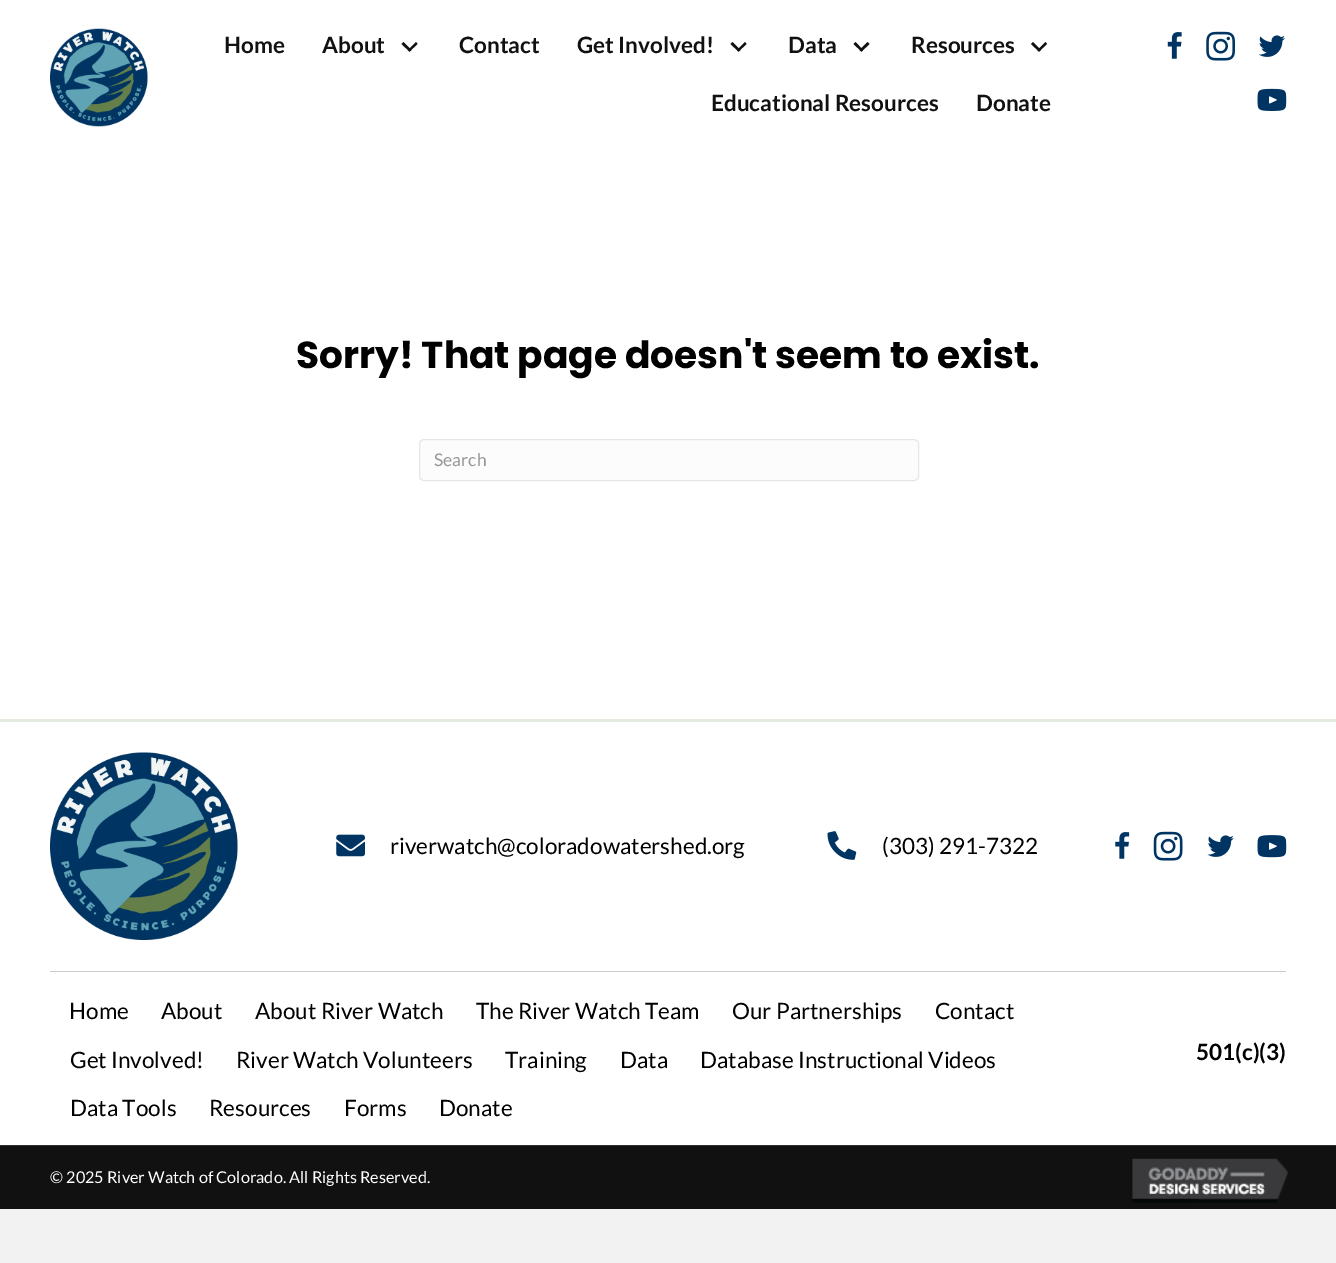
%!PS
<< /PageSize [1336 1263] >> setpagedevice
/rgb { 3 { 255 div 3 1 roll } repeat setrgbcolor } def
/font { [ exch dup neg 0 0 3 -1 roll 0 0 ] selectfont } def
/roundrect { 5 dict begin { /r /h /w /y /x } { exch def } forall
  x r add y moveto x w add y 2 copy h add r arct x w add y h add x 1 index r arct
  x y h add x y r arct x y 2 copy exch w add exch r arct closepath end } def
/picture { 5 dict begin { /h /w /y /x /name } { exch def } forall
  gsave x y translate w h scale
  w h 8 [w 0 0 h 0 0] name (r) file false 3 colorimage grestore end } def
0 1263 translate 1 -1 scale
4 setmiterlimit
242 242 242 rgb
0 0 1336 1263 rectfill
255 255 255 rgb
0 0 1336 719 rectfill
(img/1.rgb) 50 28 98 99 picture
17 17 17 rgb
416 42 moveto 417.5 44 lineto 409.5 51.5 lineto 408 50 lineto closepath fill
403.5 42 moveto 411.5 50 lineto 409.5 51.5 lineto 401.5 44 lineto closepath fill
745 42 moveto 746.5 44 lineto 738.5 51.5 lineto 737 50 lineto closepath fill
732.5 42 moveto 740.5 50 lineto 738.5 51.5 lineto 730.5 44 lineto closepath fill
867.5 42 moveto 869.5 44 lineto 861.5 51.5 lineto 859.5 50 lineto closepath fill
855.5 42 moveto 863 50 lineto 861.5 51.5 lineto 853.5 44 lineto closepath fill
1045.5 42 moveto 1047 44 lineto 1039 51.5 lineto 1037.5 50 lineto closepath fill
1033 42 moveto 1041 50 lineto 1039 51.5 lineto 1031 44 lineto closepath fill
(img/2.rgb) 1167 32 15 27 picture
(img/3.rgb) 1206 31 29 30 picture
(img/4.rgb) 1258 35 27 22 picture
(img/5.rgb) 1257 88 30 23 picture
252 252 252 rgb
419.5 439.5 499 41 4.5 roundrect gsave fill grestore
230 230 230 rgb
stroke
255 255 255 rgb
0 722 1336 423 rectfill
230 235 226 rgb
0 719 1336 3 rectfill
(img/6.rgb) 50 752 188 188 picture
(img/7.rgb) 336 834 29 23 picture
(img/8.rgb) 827 831 30 29 picture
(img/9.rgb) 1115 832 15 27 picture
(img/10.rgb) 1153 831 30 30 picture
(img/11.rgb) 1207 835 27 22 picture
(img/12.rgb) 1257 835 30 23 picture
[
  [50 971 1236 1 204 204 204]
  [0 1146 1336 63 17 17 17]
  [0 1145 1336 1 45 45 45]
] { aload pop rgb rectfill } forall
(img/13.rgb) 1132 1158 157 45 picture
/Lato-Bold 22.5 font
17 17 17 rgb
[
  [(Home) 224 53]
  [(About) 322 53]
  [(Contact) 459 53]
  [(Get Involved!) 577 53]
  [(Data) 788 53]
  [(Resources) 911 53]
  [(Educational Resources) 711 111]
  [(Donate) 976 111]
] { aload pop moveto show } forall
/Poppins-Bold 37.5 font
0 0 0 rgb
296 368 moveto (Sorry! That page doesn't seem to exist.) show
/Lato-Regular 17.5 font
151 151 151 rgb
434 466 moveto (Search) show
/Lato-Regular 22.5 font
0 0 0 rgb
[
  [(riverwatch@coloradowatershed.org) 390 854]
  [(\(303\) 291-7322) 882 854]
  [(Home) 69 1019]
  [(About) 161 1019]
  [(About River Watch) 255 1019]
  [(The River Watch Team) 476 1019]
  [(Our Partnerships) 732 1019]
  [(Contact) 935 1019]
  [(Get Involved!) 70 1068]
  [(River Watch Volunteers) 236 1068]
  [(Training) 505 1068]
  [(Data) 620 1068]
  [(Database Instructional Videos) 700 1068]
  [(Data Tools) 70 1116]
  [(Resources) 209 1116]
  [(Forms) 344 1116]
  [(Donate) 439 1116]
] { aload pop moveto show } forall
/Lato-Bold 22.5 font
1196 1060 moveto (501\(c\)\(3\)) show
/Lato-Regular 16.25 font
255 255 255 rgb
50 1183 moveto (© 2025 River Watch of Colorado. All Rights Reserved.) show
showpage
